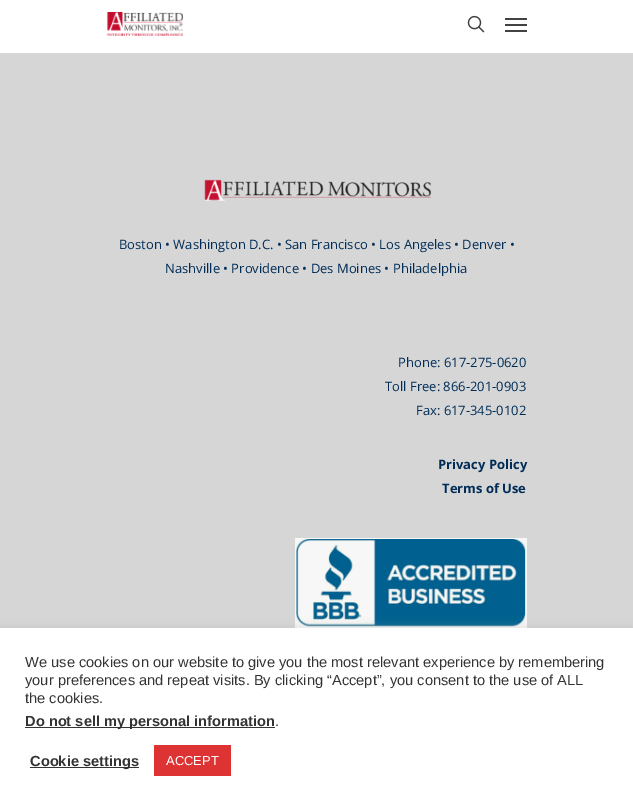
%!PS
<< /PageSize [633 806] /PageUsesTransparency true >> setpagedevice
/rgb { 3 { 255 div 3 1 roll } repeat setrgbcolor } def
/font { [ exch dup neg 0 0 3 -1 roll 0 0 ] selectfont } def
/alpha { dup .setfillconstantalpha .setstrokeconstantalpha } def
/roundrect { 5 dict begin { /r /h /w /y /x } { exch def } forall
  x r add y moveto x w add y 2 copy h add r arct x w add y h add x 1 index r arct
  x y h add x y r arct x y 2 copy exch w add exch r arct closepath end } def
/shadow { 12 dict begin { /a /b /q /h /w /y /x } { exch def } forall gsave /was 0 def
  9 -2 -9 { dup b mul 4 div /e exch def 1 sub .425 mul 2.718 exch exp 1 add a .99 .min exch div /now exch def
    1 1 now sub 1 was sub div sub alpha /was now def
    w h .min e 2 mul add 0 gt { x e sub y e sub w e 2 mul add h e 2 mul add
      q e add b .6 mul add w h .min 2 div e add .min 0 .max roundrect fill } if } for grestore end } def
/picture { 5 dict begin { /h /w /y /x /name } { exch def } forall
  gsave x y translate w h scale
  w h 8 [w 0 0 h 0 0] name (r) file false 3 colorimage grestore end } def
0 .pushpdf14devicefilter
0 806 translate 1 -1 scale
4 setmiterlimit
255 255 255 rgb
0 0 633 806 rectfill
(img/1.rgb) 106 12 77 24 picture
(img/2.rgb) 467 15 18 18 picture
[
  [505 18 22 2 66 66 66]
  [505 30 22 2 66 66 66]
  [505 24 22 2 66 66 66]
  [0 53 633 575 214 214 214]
] { aload pop rgb rectfill } forall
(img/3.rgb) 204 179 228 22 picture
(img/4.rgb) 295 538 232 90 picture
172 171 171 rgb
0 627 633 178 0 5 0.3 shadow
[
  [0 628 633 178 255 255 255]
  [25 727 250 1 51 51 51]
  [30 767 109 1 51 51 51]
  [154 745 77 31 221 51 51]
] { aload pop rgb rectfill } forall
/OpenSans-Regular 13 font
0 44 86 rgb
[
  [(Boston • Washington D.C. • San Francisco • Los Angeles • Denver •) 119 249]
  [(Nashville • Providence • Des Moines • Philadelphia) 165 273]
  [(Phone: 617-275-0620) 398 367]
  [(Toll Free: 866-201-0903) 385 391]
  [(Fax: 617-345-0102) 416 415]
] { aload pop moveto show } forall
/OpenSans-Bold 13 font
438 469 moveto (Privacy Policy) show
442 493 moveto (Terms of Use) show
/LiberationSans-Regular 14.65 font
51 51 51 rgb
[
  [(We use cookies on our website to give you the most relevant experience by remembering) 25 667]
  [(your preferences and repeat visits. By clicking “Accept”, you consent to the use of ALL) 25 685]
  [(the cookies.) 25 703]
] { aload pop moveto show } forall
/LiberationSans-Bold 14.65 font
25 726 moveto (Do not sell my personal information) show
/LiberationSans-Regular 14.65 font
275 726 moveto (.) show
/LiberationSans-Bold 14.65 font
30 766 moveto (Cookie settings) show
/LiberationSans-Regular 13 font
255 255 255 rgb
166 765 moveto (ACCEPT) show
.poppdf14devicefilter showpage
